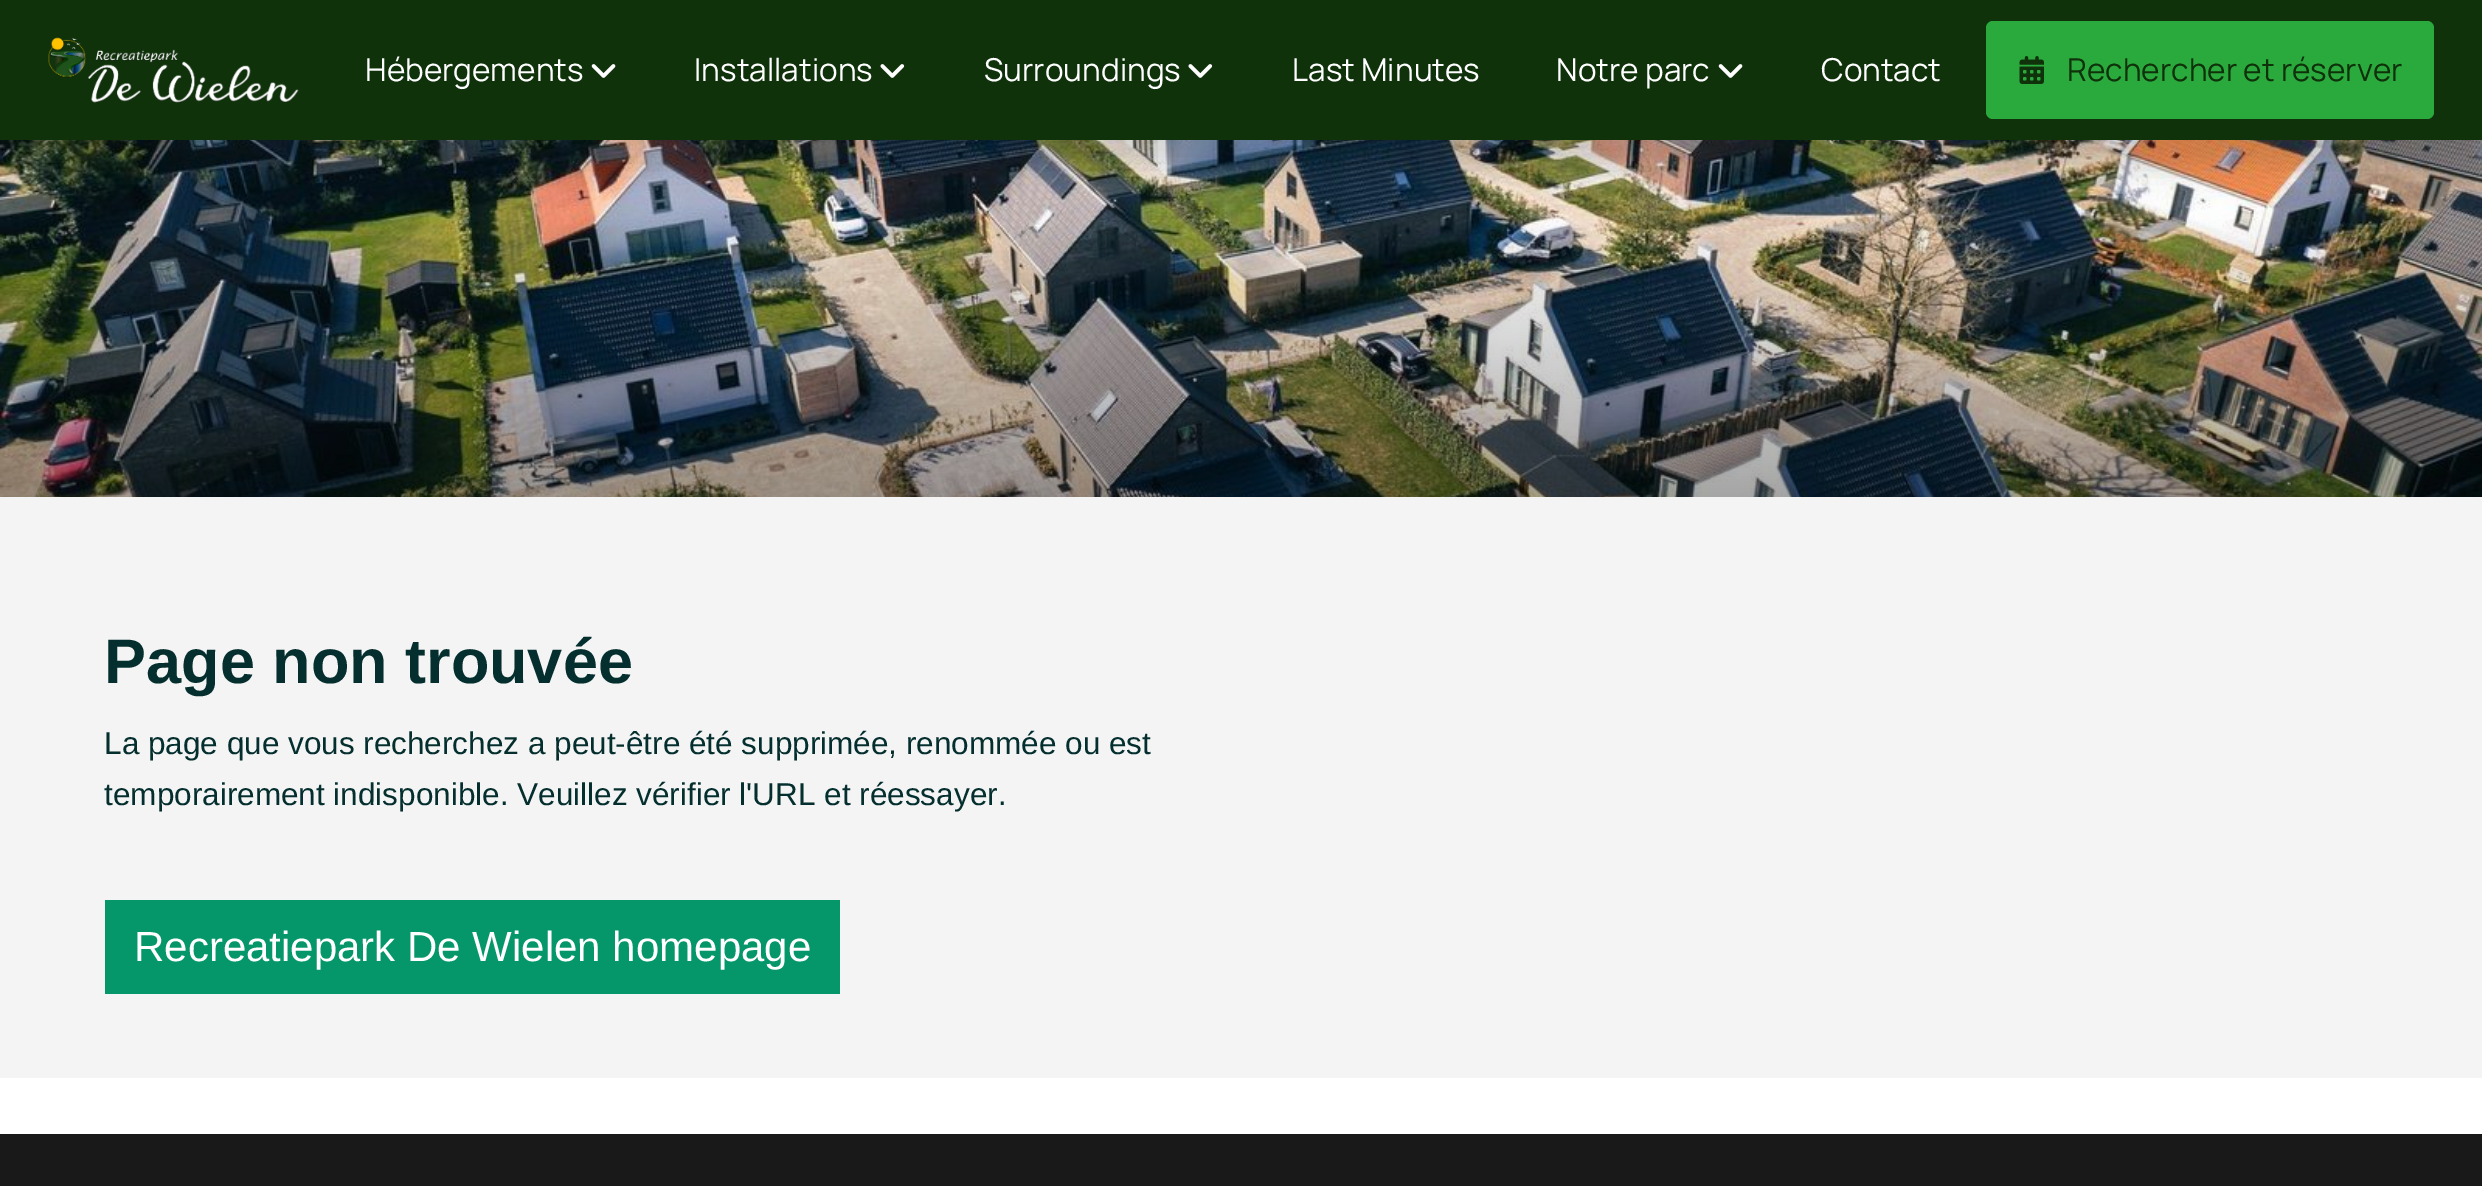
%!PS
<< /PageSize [2482 1186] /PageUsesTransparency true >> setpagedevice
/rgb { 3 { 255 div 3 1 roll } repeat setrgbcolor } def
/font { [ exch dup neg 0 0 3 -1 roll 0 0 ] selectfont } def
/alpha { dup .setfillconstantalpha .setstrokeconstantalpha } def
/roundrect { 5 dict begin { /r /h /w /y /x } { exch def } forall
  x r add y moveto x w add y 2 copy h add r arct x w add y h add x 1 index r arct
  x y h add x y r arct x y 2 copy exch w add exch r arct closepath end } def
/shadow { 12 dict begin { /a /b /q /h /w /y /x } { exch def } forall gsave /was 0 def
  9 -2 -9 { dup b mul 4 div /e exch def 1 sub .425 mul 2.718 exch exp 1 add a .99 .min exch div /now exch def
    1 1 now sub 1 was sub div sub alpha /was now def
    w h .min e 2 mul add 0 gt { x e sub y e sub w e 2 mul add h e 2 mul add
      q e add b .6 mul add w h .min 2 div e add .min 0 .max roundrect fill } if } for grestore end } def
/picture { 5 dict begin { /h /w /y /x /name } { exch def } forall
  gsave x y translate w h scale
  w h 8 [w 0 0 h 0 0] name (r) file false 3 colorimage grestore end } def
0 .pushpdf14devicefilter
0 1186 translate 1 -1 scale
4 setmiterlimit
255 255 255 rgb
0 0 2482 1186 rectfill
(img/5.rgb) 0 140 2482 357 picture
0 0 0 rgb
0 28 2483 140 0 14 0.15 shadow
15 50 11 rgb
0 0 2482 140 rectfill
(img/1.rgb) 48 37 251 66 picture
(img/2.rgb) 591 64 25 14 picture
(img/3.rgb) 880 64 25 14 picture
(img/3.rgb) 1188 64 25 14 picture
(img/2.rgb) 1718 64 25 14 picture
42 170 61 rgb
1986 21 448 98 7 roundrect fill
(img/4.rgb) 2019 56 25 28 picture
[
  [0 497 2482 581 244 244 244]
  [105 900 735 94 5 150 105]
  [0 1134 2482 52 25 25 25]
] { aload pop rgb rectfill } forall
/Manrope-Regular 31.5 font
255 255 255 rgb
[
  [(Hébergements) 365 81]
  [(Installations) 694 81]
  [(Surroundings) 984 81]
  [(Last Minutes) 1292 81]
  [(Notre parc) 1556 81]
  [(Contact) 1821 81]
] { aload pop moveto show } forall
15 50 11 rgb
2067 81 moveto (Rechercher et réserver) show
/LiberationSans-Bold 63 font
4 47 46 rgb
104 683 moveto (Page non trouvée) show
/LiberationSans-Regular 31.5 font
104 754 moveto (La page que vous recherchez a peut-être été supprimée, renommée ou est) show
104 805 moveto (temporairement indisponible. Veuillez vérifier l'URL et réessayer.) show
/LiberationSans-Regular 42 font
255 255 255 rgb
134 961 moveto (Recreatiepark De Wielen homepage) show
.poppdf14devicefilter showpage
